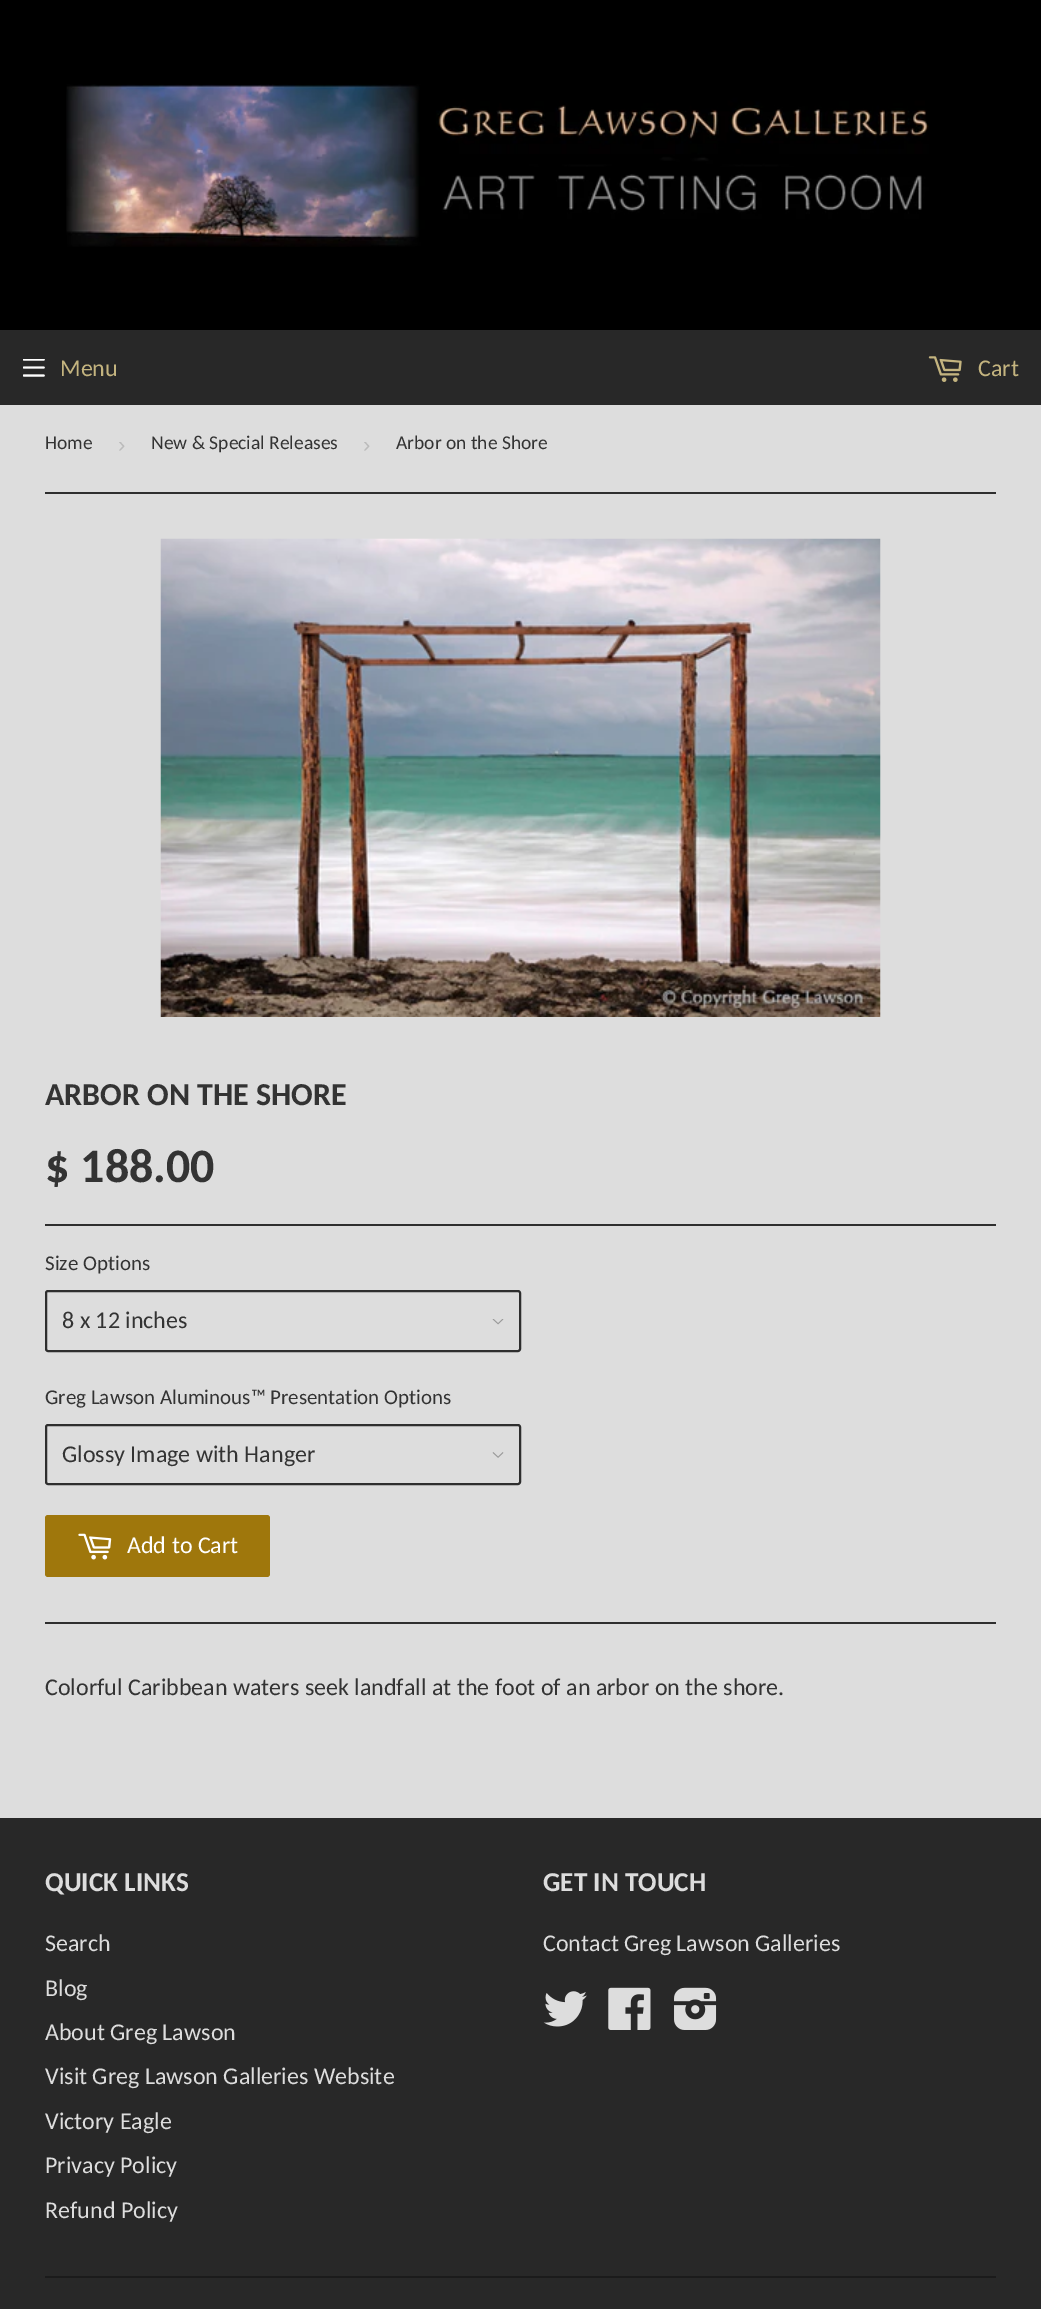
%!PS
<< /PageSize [1041 2309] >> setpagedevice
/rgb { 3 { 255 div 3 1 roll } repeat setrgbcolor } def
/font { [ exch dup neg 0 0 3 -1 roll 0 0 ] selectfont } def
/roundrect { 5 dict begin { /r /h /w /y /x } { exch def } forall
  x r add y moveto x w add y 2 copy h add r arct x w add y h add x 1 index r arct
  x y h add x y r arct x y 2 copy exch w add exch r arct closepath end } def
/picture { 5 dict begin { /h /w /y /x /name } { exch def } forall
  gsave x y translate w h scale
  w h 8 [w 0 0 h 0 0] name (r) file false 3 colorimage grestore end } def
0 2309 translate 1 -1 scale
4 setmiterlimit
221 221 221 rgb
0 0 1041 2309 rectfill
0 0 0 rgb
0 0 1041 330 rectfill
(img/1.rgb) 66 84 863 163 picture
40 40 40 rgb
0 330 1041 75 rectfill
(img/2.rgb) 23 359 22 18 picture
(img/3.rgb) 928 356 34 26 picture
46 46 46 rgb
45 492 951 2 rectfill
(img/4.rgb) 160 538 721 479 picture
45 1224 951 2 rectfill
(img/5.rgb) 492 1319 12 6 picture
2 setlinewidth
46 1291 474 60 2 roundrect stroke
(img/6.rgb) 492 1452 12 6 picture
46 1425 474 59 2 roundrect stroke
159 119 12 rgb
45 1515 225 62 3 roundrect fill
(img/7.rgb) 78 1533 34 27 picture
46 46 46 rgb
45 1622 951 2 rectfill
40 40 40 rgb
0 1818 1041 491 rectfill
(img/8.rgb) 543 1991 44 36 picture
(img/9.rgb) 608 1987 43 43 picture
(img/10.rgb) 674 1987 43 43 picture
27 27 27 rgb
45 2276 951 2 rectfill
/Carlito-Regular 24 font
196 180 127 rgb
60 376 moveto (Menu) show
978 376 moveto (Cart) show
/Carlito-Regular 19.5 font
51 51 51 rgb
45 449 moveto (Home) show
/LiberationSans-Regular 22 font
187 187 187 rgb
118 452 moveto (›) show
/Carlito-Regular 19.5 font
51 51 51 rgb
151 449 moveto (New & Special Releases) show
/LiberationSans-Regular 22 font
187 187 187 rgb
363 452 moveto (›) show
/Carlito-Regular 19.5 font
51 51 51 rgb
396 449 moveto (Arbor on the Shore) show
/Carlito-Bold 32 font
45 1105 moveto (ARBOR ON THE SHORE) show
/Carlito-Bold 48 font
45 1182 moveto ($ 188.00) show
/Carlito-Regular 21 font
45 1270 moveto (Size Options) show
/Carlito-Regular 24 font
62 1328 moveto (8 x 12 inches) show
/Carlito-Regular 21 font
45 1404 moveto (Greg Lawson Aluminous™ Presentation Options) show
/Carlito-Regular 24 font
62 1462 moveto (Glossy Image with Hanger) show
255 255 255 rgb
127 1553 moveto (Add to Cart) show
51 51 51 rgb
45 1695 moveto (Colorful Caribbean waters seek landfall at the foot of an arbor on the shore.) show
/Carlito-Bold 27.25 font
221 221 221 rgb
45 1891 moveto (QUICK LINKS) show
/Carlito-Regular 24 font
[
  [(Search) 45 1951]
  [(Blog) 45 1996]
  [(About Greg Lawson) 45 2040]
  [(Visit Greg Lawson Galleries Website) 45 2084]
  [(Victory Eagle) 45 2129]
  [(Privacy Policy) 45 2173]
  [(Refund Policy) 45 2218]
] { aload pop moveto show } forall
/Carlito-Bold 27.25 font
543 1891 moveto (GET IN TOUCH) show
/Carlito-Regular 24 font
543 1951 moveto (Contact Greg Lawson Galleries) show
showpage
